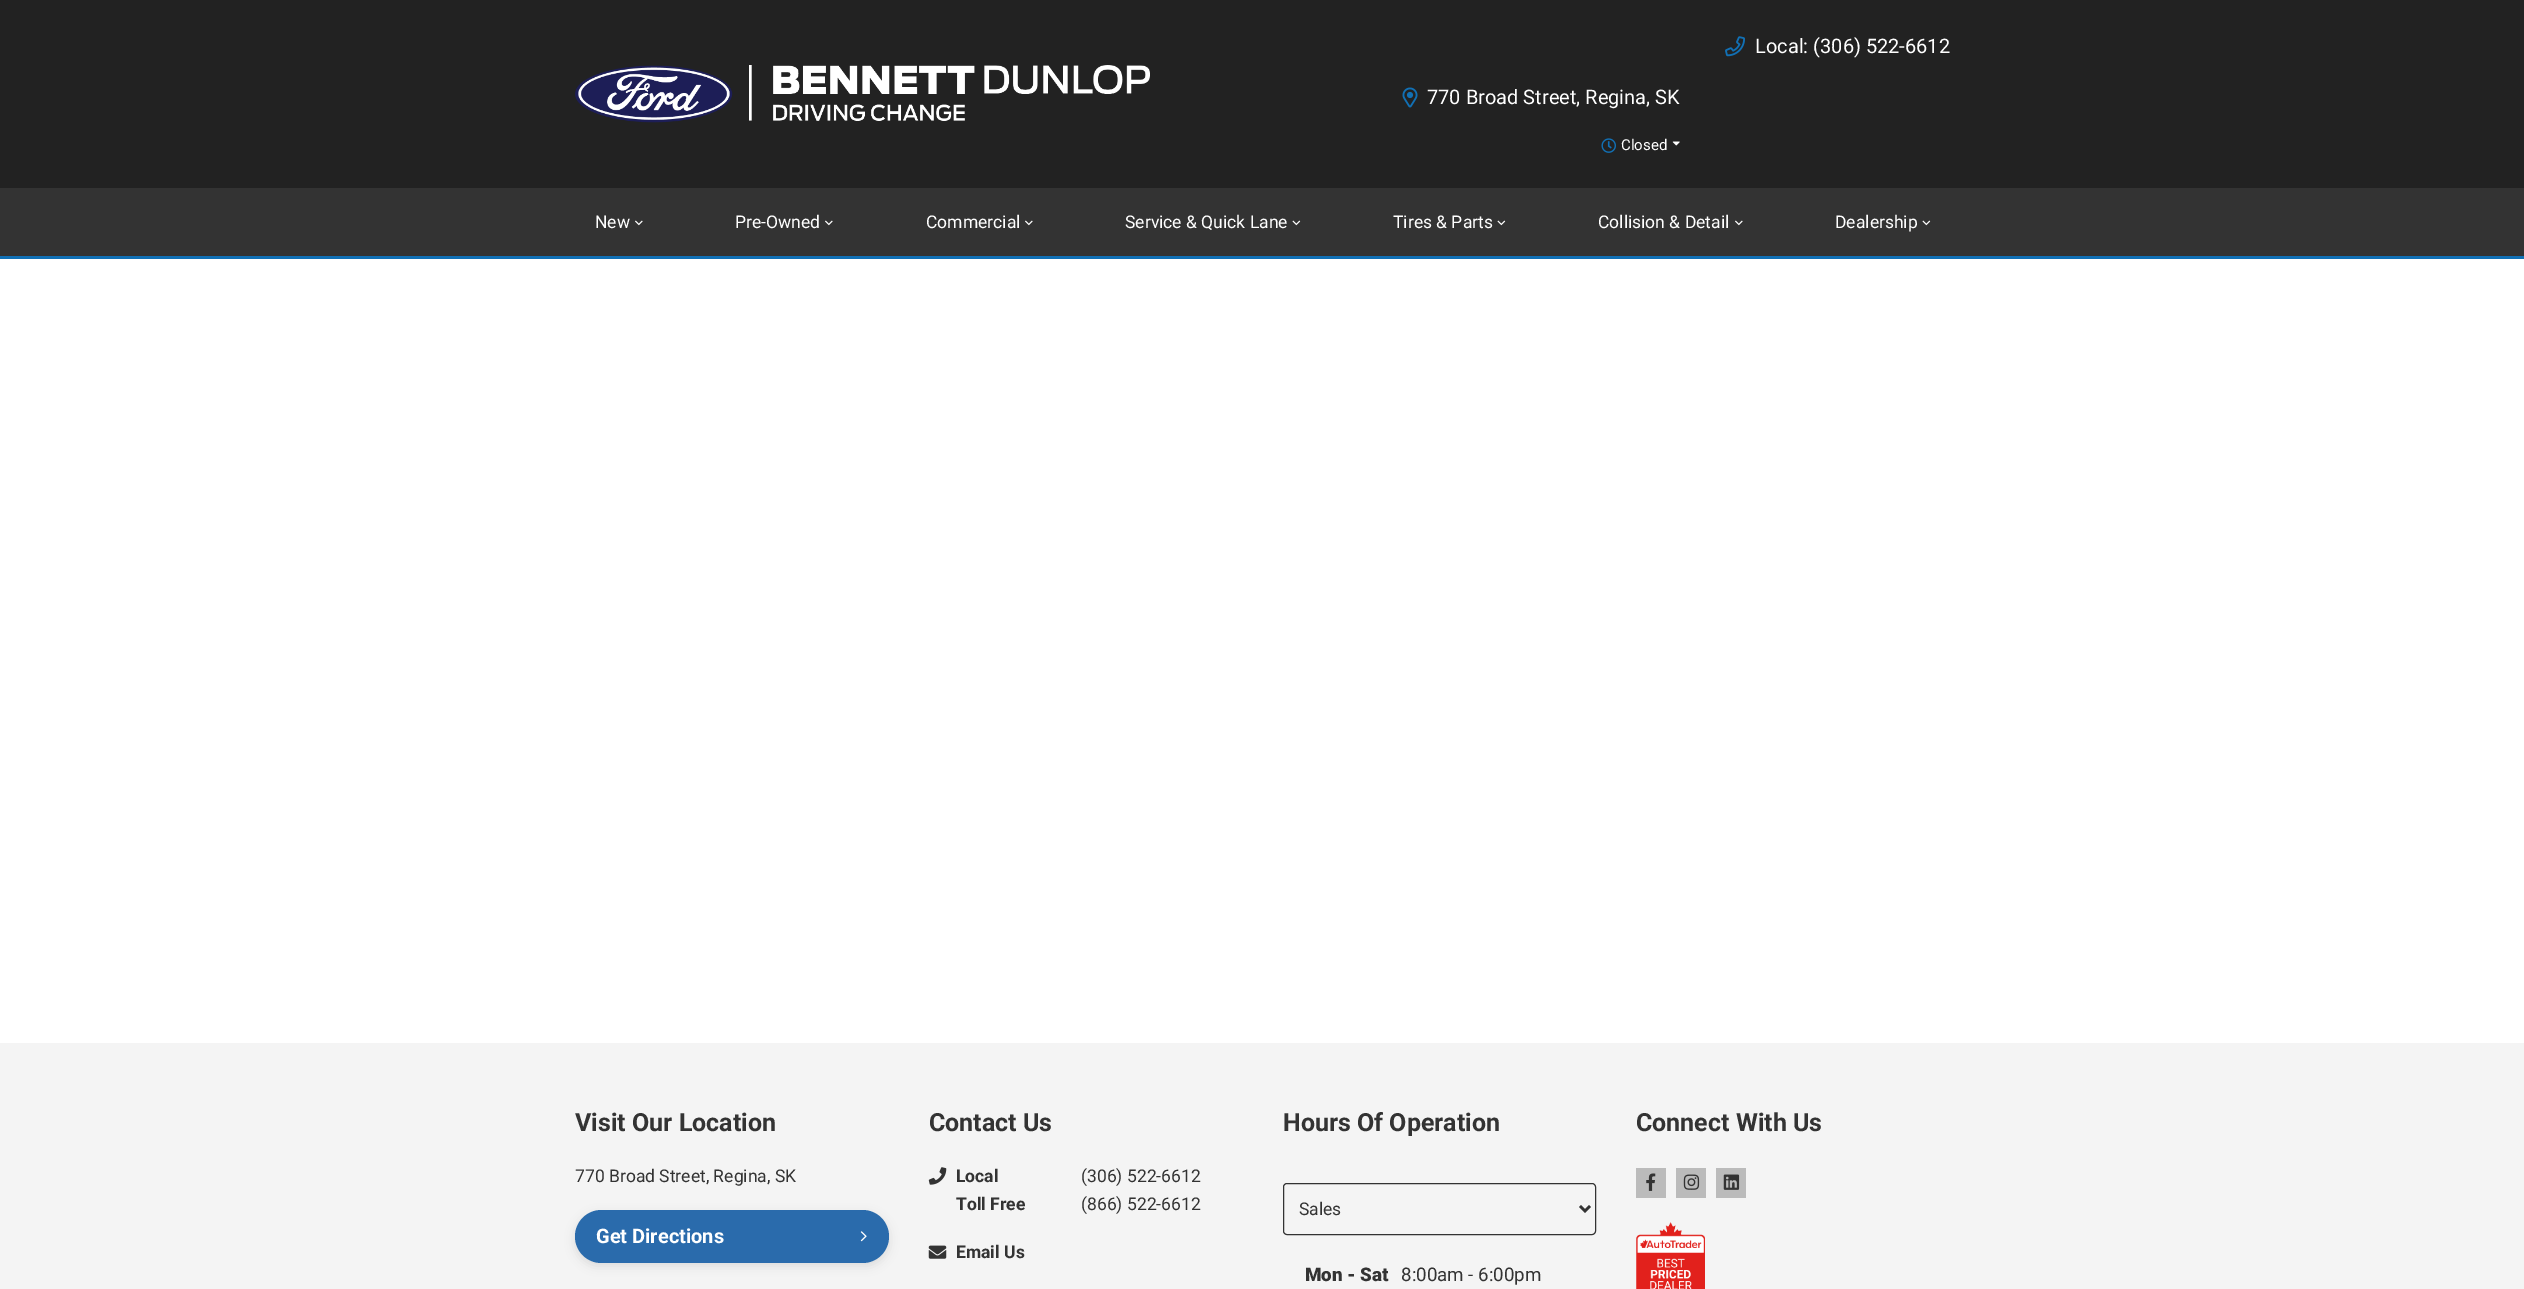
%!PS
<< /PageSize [2524 1289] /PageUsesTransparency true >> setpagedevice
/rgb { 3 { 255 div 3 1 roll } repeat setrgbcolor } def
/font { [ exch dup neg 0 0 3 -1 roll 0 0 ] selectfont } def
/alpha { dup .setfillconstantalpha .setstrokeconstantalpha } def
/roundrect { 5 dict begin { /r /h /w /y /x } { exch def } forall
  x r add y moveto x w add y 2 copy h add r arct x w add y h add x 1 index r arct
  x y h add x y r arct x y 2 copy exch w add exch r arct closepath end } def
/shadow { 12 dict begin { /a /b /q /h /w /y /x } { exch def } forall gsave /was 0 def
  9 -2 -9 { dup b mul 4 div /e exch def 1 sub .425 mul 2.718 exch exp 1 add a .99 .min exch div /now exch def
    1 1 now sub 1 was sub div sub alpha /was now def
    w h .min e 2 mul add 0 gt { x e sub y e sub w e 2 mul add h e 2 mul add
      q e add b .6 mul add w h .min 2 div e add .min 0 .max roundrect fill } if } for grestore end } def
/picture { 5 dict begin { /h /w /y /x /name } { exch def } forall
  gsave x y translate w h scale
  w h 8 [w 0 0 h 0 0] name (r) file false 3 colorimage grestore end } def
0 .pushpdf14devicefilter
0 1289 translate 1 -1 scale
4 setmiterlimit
255 255 255 rgb
0 0 2524 1289 rectfill
51 51 51 rgb
0 188 2524 68 rectfill
34 34 34 rgb
0 0 2524 188 rectfill
(img/1.rgb) 575 65 575 58 picture
(img/2.rgb) 1725 36 20 21 picture
(img/3.rgb) 1402 87 16 21 picture
(img/4.rgb) 1601 138 15 15 picture
(img/5.rgb) 1672 141 8 5 picture
17 112 181 rgb
0 256 2524 3 rectfill
(img/6.rgb) 635 220 8 6 picture
(img/6.rgb) 825 220 8 6 picture
(img/6.rgb) 1025 220 8 6 picture
(img/7.rgb) 1292 220 9 6 picture
(img/7.rgb) 1497 220 9 6 picture
(img/6.rgb) 1735 220 8 6 picture
(img/7.rgb) 1922 220 9 6 picture
244 244 244 rgb
0 1043 2524 246 rectfill
0 0 0 rgb
575 1214 314 52 26 5 0.1 shadow
42 107 172 rgb
575 1210 314 53 26.5 roundrect fill
(img/8.rgb) 860 1231 7 11 picture
(img/9.rgb) 928 1167 19 18 picture
(img/10.rgb) 928 1245 19 14 picture
51 51 51 rgb
1283.5 1183.5 312 51 3.5 roundrect stroke
2.5 setlinewidth
1580 1206 moveto 1585 1211 lineto 1590 1206 lineto stroke
187 187 187 rgb
1636 1168 30 30 rectfill
(img/11.rgb) 1646 1173 10 18 picture
1676 1168 30 30 rectfill
(img/12.rgb) 1683 1174 17 16 picture
1716 1168 30 30 rectfill
(img/13.rgb) 1723 1174 17 16 picture
(img/14.rgb) 1636 1222 69 67 picture
/Roboto-Regular 20 font
255 255 255 rgb
1755 53 moveto (Local: \(306\) 522-6612) show
1427 104 moveto (770 Broad Street, Regina, SK) show
/Roboto-Regular 15 font
1621 150 moveto (Closed) show
/Roboto-Regular 17.5 font
[
  [(New) 595 228]
  [(Pre-Owned) 735 228]
  [(Commercial) 926 228]
  [(Service & Quick Lane) 1125 228]
  [(Tires & Parts) 1393 228]
  [(Collision & Detail) 1598 228]
  [(Dealership) 1835 228]
] { aload pop moveto show } forall
/Roboto-Bold 25 font
51 51 51 rgb
575 1131 moveto (Visit Our Location) show
/Roboto-Regular 17.5 font
575 1182 moveto (770 Broad Street, Regina, SK) show
/Roboto-Bold 20 font
255 255 255 rgb
596 1243 moveto (Get Directions) show
/Roboto-Bold 25 font
51 51 51 rgb
929 1131 moveto (Contact Us) show
/Roboto-Bold 17.5 font
956 1182 moveto (Local) show
/Roboto-Regular 17.5 font
1081 1182 moveto (\(306\) 522-6612) show
/Roboto-Bold 17.5 font
956 1210 moveto (Toll Free) show
/Roboto-Regular 17.5 font
1081 1210 moveto (\(866\) 522-6612) show
/Roboto-Bold 17.5 font
956 1258 moveto (Email Us) show
/Roboto-Bold 25 font
1283 1131 moveto (Hours Of Operation) show
/Roboto-Regular 17.5 font
1299 1215 moveto (Sales) show
/Roboto-Black 18.75 font
1305 1281 moveto (Mon - Sat) show
/Roboto-Regular 18.75 font
1401 1281 moveto (8:00am - 6:00pm) show
/Roboto-Bold 25 font
1636 1131 moveto (Connect With Us) show
.poppdf14devicefilter showpage
